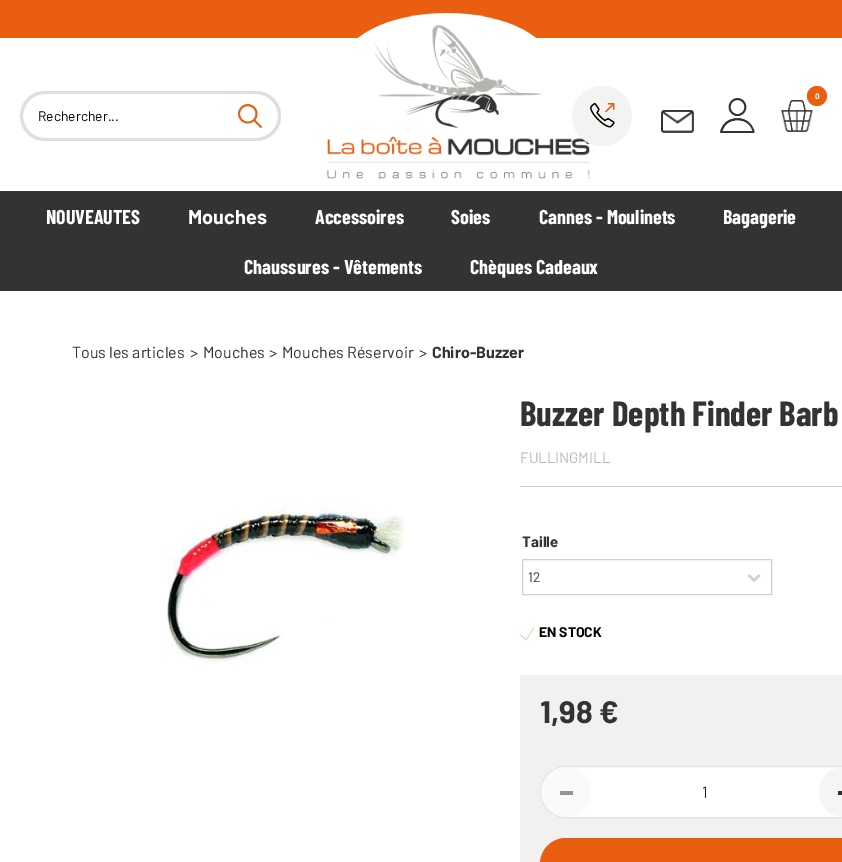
%!PS
<< /PageSize [842 862] /PageUsesTransparency true >> setpagedevice
/rgb { 3 { 255 div 3 1 roll } repeat setrgbcolor } def
/font { [ exch dup neg 0 0 3 -1 roll 0 0 ] selectfont } def
/alpha { dup .setfillconstantalpha .setstrokeconstantalpha } def
/circle { newpath 0 360 arc closepath } def
/roundrect { 5 dict begin { /r /h /w /y /x } { exch def } forall
  x r add y moveto x w add y 2 copy h add r arct x w add y h add x 1 index r arct
  x y h add x y r arct x y 2 copy exch w add exch r arct closepath end } def
/picture { 5 dict begin { /h /w /y /x /name } { exch def } forall
  gsave x y translate w h scale
  w h 8 [w 0 0 h 0 0] name (r) file false 3 colorimage grestore end } def
0 .pushpdf14devicefilter
0 862 translate 1 -1 scale
4 setmiterlimit
255 255 255 rgb
0 0 842 862 rectfill
234 94 17 rgb
0 0 842 38 rectfill
(img/1.rgb) 327 13 264 166 picture
243 243 241 rgb
602 116 30 circle fill
(img/2.rgb) 590 103 25 25 picture
(img/3.rgb) 781 100 33 32 picture
234 94 17 rgb
817 96 10 circle fill
(img/4.rgb) 661 110 33 23 picture
(img/5.rgb) 720 98 35 35 picture
223 223 223 rgb
45 91 moveto 223 91 lineto 223 141 lineto 45 141 lineto 31 141 20 130 20 116 curveto 20 102 31 91 45 91 curveto closepath 45 94 moveto 223 94 lineto 223 138 lineto 45 138 lineto 33 138 23 128 23 116 curveto 23 104 33 94 45 94 curveto closepath eofill
223 91 moveto 256 91 lineto 270 91 281 102 281 116 curveto 281 130 270 141 256 141 curveto 223 141 lineto closepath 223 94 moveto 256 94 lineto 268 94 278 104 278 116 curveto 278 128 268 138 256 138 curveto 223 138 lineto closepath eofill
(img/6.rgb) 238 104 24 24 picture
51 51 51 rgb
0 191 842 100 rectfill
(img/7.rgb) 166 503 240 161 picture
209 209 209 rgb
520 486 322 1 rectfill
208 208 208 rgb
522.5 559.5 249 35 rectstroke
(img/8.rgb) 747 574 14 8 picture
(img/9.rgb) 520 627 14 14 picture
242 241 239 rgb
520 675 322 187 rectfill
255 255 255 rgb
540.5 766.5 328 51 25.5 roundrect gsave fill grestore
227 227 227 rgb
stroke
0.5 alpha
245 245 245 rgb
566 792 25 circle fill
1 alpha
151 148 146 rgb
560 791 13 4 rectfill
245 245 245 rgb
819 767 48 50 25 roundrect fill
51 46 41 rgb
838 791 4 4 rectfill
234 94 17 rgb
540.5 838.5 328 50 25.5 roundrect gsave fill grestore
stroke
/Barlow-Bold 8 font
255 255 255 rgb
815 99 moveto (0) show
/Barlow-Regular 13.75 font
0 0 0 rgb
38 121 moveto (Rechercher...) show
/BarlowCondensed-Bold 20 font
255 255 255 rgb
46 224 moveto (NOUVEAUTES) show
/Barlow-Bold 20 font
188 224 moveto (Mouches) show
/BarlowCondensed-Bold 20 font
[
  [(Accessoires) 315 224]
  [(Soies) 451 224]
  [(Cannes - Moulinets) 539 224]
  [(Bagagerie) 723 224]
  [(Chaussures - Vêtements) 244 274]
  [(Chèques Cadeaux) 470 274]
] { aload pop moveto show } forall
/Barlow-Regular 16 font
51 51 51 rgb
[
  [(Tous les articles) 72 358]
  [(>) 190 358]
  [(Mouches) 203 358]
  [(>) 269 358]
  [(Mouches Réservoir) 282 358]
  [(>) 419 358]
] { aload pop moveto show } forall
/Barlow-Bold 16 font
432 358 moveto (Chiro-Buzzer) show
/BarlowCondensed-Bold 35 font
520 426 moveto (Buzzer Depth Finder Barb) show
/Barlow-Regular 15 font
184 184 184 rgb
520 463 moveto (FULLINGMILL) show
/Barlow-Bold 15 font
51 51 51 rgb
522 547 moveto (Taille) show
/Barlow-Regular 13.75 font
528 582 moveto (12) show
/Barlow-Bold 14 font
0 0 0 rgb
539 637 moveto (EN STOCK) show
/Barlow-Bold 31 font
51 51 51 rgb
540 723 moveto (1,98 €) show
/Barlow-Regular 16 font
33 33 33 rgb
702 798 moveto (1) show
.poppdf14devicefilter showpage
